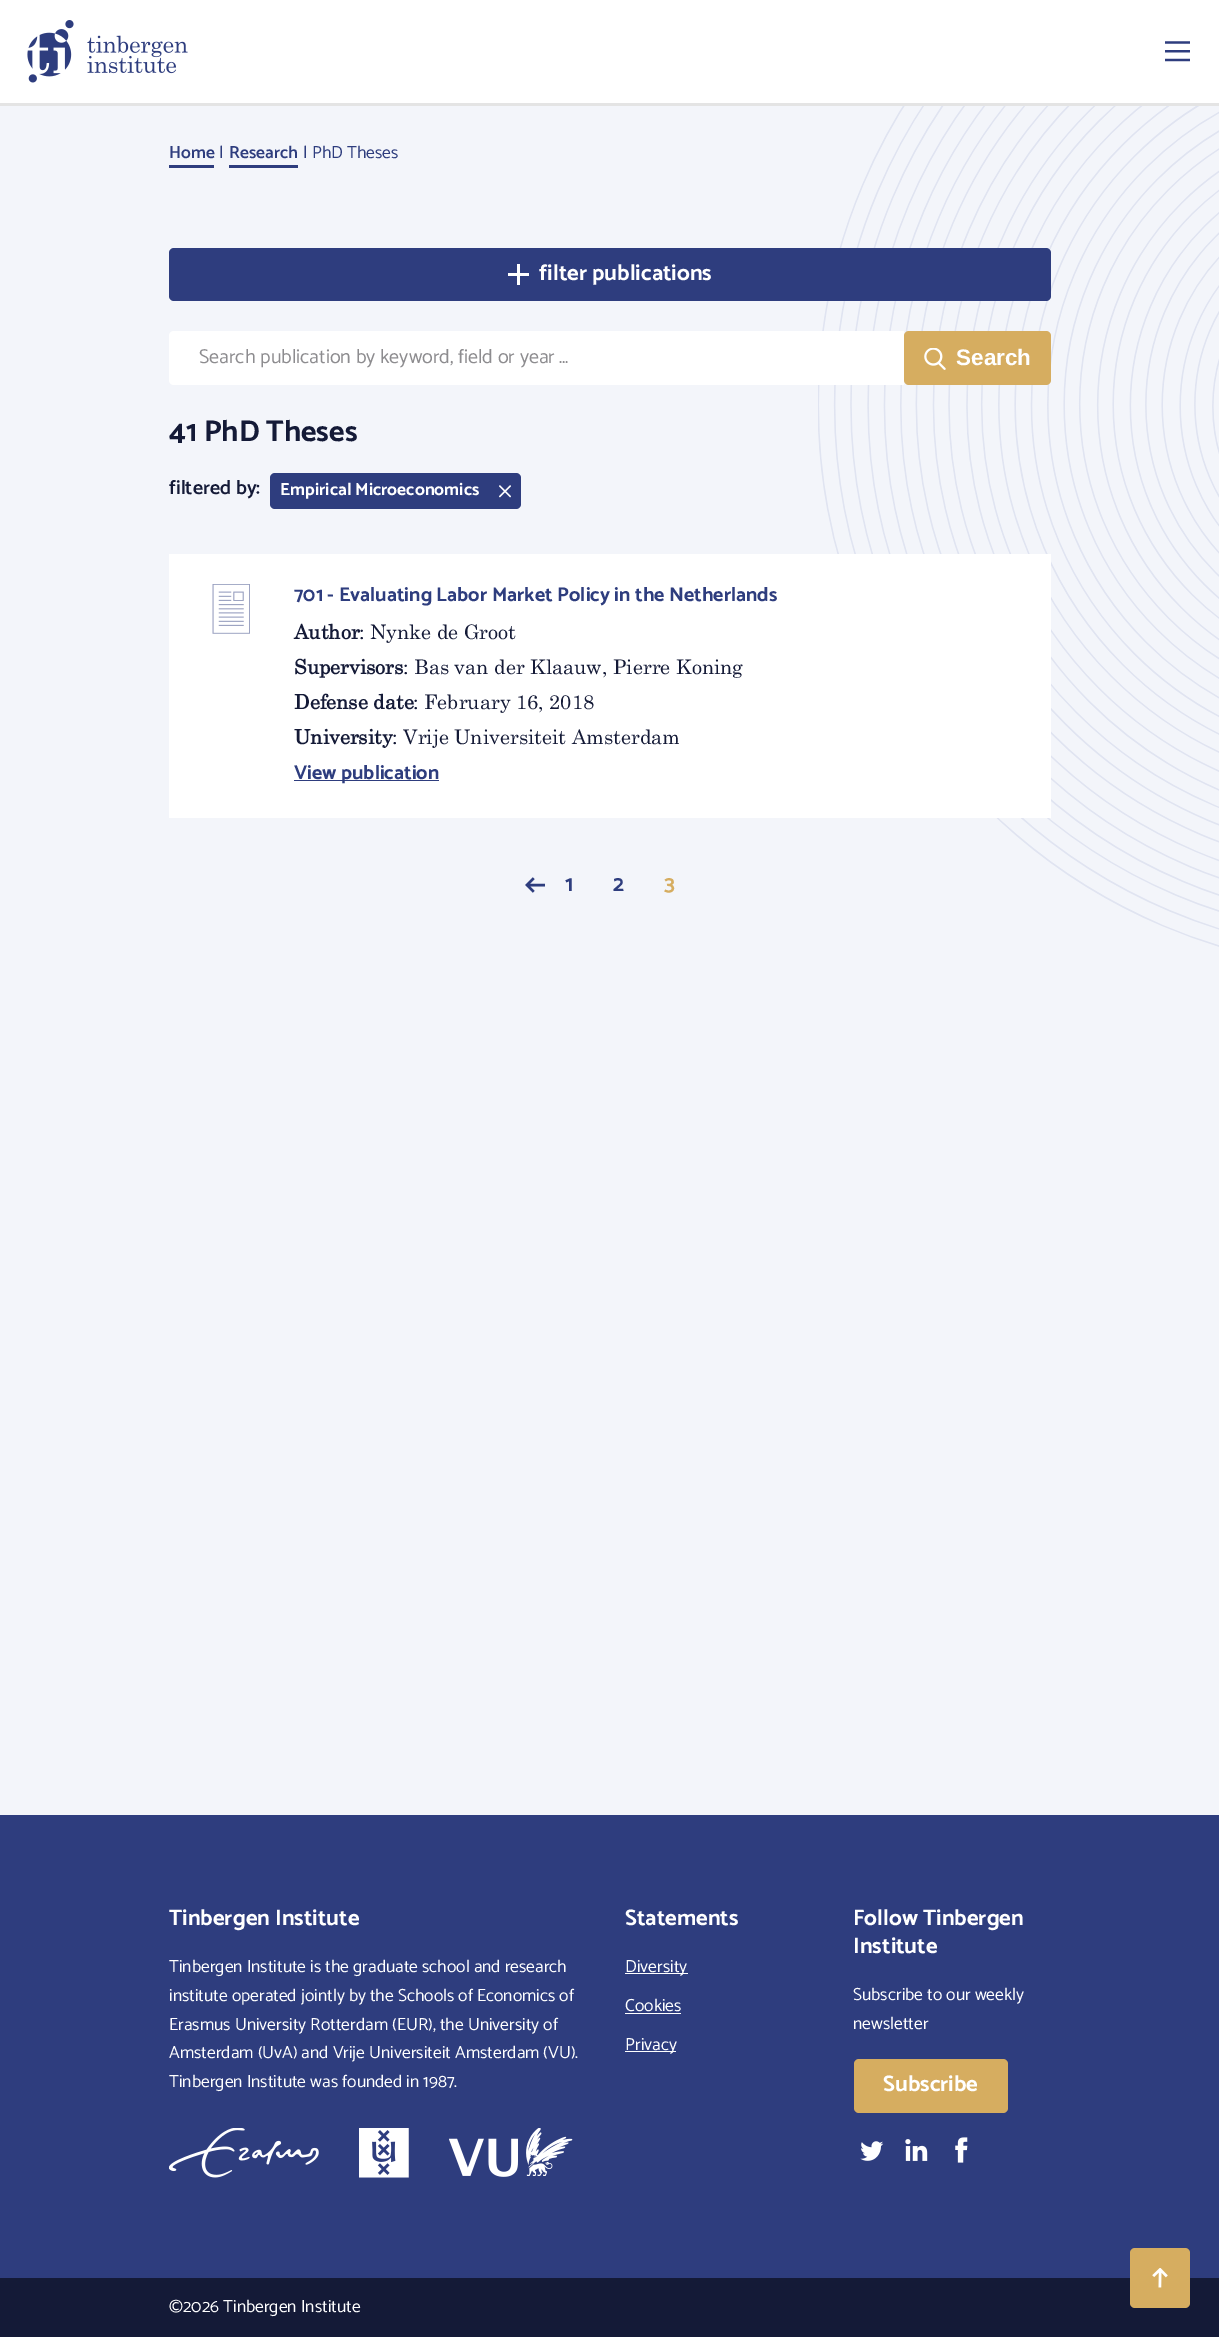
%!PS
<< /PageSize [1219 2337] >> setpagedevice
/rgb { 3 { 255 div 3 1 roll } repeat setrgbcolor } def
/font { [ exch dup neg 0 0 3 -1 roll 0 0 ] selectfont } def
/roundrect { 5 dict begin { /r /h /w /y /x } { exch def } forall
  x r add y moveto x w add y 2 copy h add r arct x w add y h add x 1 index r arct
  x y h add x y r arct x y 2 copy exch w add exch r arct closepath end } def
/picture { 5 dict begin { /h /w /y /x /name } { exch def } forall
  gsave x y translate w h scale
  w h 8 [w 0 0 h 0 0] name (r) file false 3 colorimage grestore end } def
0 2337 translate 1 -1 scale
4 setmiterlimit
243 245 250 rgb
0 0 1219 2337 rectfill
(img/1.rgb) 818 106 401 841 picture
255 255 255 rgb
0 0 1219 103 rectfill
228 228 228 rgb
0 103 1219 3 rectfill
(img/2.rgb) 27 20 161 63 picture
(img/3.rgb) 1165 41 25 21 picture
46 61 126 rgb
169 165 45 3 rectfill
229 165 69 3 rectfill
169 248 882 53 5 roundrect fill
255 255 255 rgb
508 273 21 3 rectfill
517 264 3 21 rectfill
174 331 moveto 904 331 lineto 904 385 lineto 174 385 lineto 171 385 169 383 169 380 curveto 169 336 lineto 169 333 171 331 174 331 curveto closepath fill
214 173 96 rgb
904 331 147 54 5 roundrect fill
(img/4.rgb) 924 348 22 22 picture
46 61 126 rgb
270 473 251 36 5 roundrect fill
(img/5.rgb) 499 485 12 13 picture
255 255 255 rgb
169 554 882 264 rectfill
(img/6.rgb) 212 584 38 50 picture
46 61 126 rgb
294 780 145 1 rectfill
(img/7.rgb) 525 877 20 16 picture
0 1815 1219 463 rectfill
(img/8.rgb) 169 2128 150 50 picture
(img/9.rgb) 359 2128 50 50 picture
(img/10.rgb) 449 2128 124 49 picture
[
  [625 1973 63 1 255 255 255]
  [625 2013 56 1 255 255 255]
  [625 2051 51 1 255 255 255]
] { aload pop rgb rectfill } forall
214 173 96 rgb
854 2059 154 54 5 roundrect fill
(img/11.rgb) 860 2141 24 20 picture
(img/12.rgb) 905 2139 23 22 picture
(img/13.rgb) 955 2137 13 26 picture
20 26 55 rgb
0 2278 1219 59 rectfill
214 173 96 rgb
1130 2248 60 60 5 roundrect fill
(img/14.rgb) 1152 2268 16 20 picture
/Catamaran-SemiBold 17.5 font
46 61 126 rgb
169 158 moveto (Home) show
/Catamaran-Regular 17.5 font
219 158 moveto (|) show
/Catamaran-SemiBold 17.5 font
229 158 moveto (Research) show
/Catamaran-Regular 17.5 font
303 158 moveto (|) show
312 158 moveto (PhD Theses) show
/Catamaran-Bold 22.5 font
255 255 255 rgb
539 280 moveto (filter publications) show
/Catamaran-Regular 20 font
141 140 143 rgb
199 363 moveto (Search publication by keyword, field or year …) show
/LiberationSans-Bold 22.5 font
255 255 255 rgb
956 365 moveto (Search) show
/Catamaran-Bold 30 font
20 26 55 rgb
169 441 moveto (41 PhD Theses) show
/Catamaran-SemiBold 20 font
169 494 moveto (filtered by:) show
/Catamaran-Bold 17.5 font
255 255 255 rgb
280 495 moveto (Empirical Microeconomics) show
/Catamaran-Bold 20 font
46 61 126 rgb
294 601 moveto (701 - Evaluating Labor Market Policy in the Netherlands) show
/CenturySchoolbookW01-Bold 20 font
20 26 55 rgb
294 639 moveto (Author) show
/CenturySchoolbookW01-Regular 20 font
359 639 moveto (: Nynke de Groot) show
/CenturySchoolbookW01-Bold 20 font
294 674 moveto (Supervisors) show
/CenturySchoolbookW01-Regular 20 font
403 674 moveto (: Bas van der Klaauw, Pierre Koning) show
/CenturySchoolbookW01-Bold 20 font
294 709 moveto (Defense date) show
/CenturySchoolbookW01-Regular 20 font
413 709 moveto (: February 16, 2018) show
/CenturySchoolbookW01-Bold 20 font
294 744 moveto (University) show
/CenturySchoolbookW01-Regular 20 font
392 744 moveto (: Vrije Universiteit Amsterdam) show
/Catamaran-Bold 20 font
46 61 126 rgb
294 779 moveto (View publication) show
/Catamaran-Bold 22.5 font
565 891 moveto (1) show
613 891 moveto (2) show
214 173 96 rgb
664 891 moveto (3) show
255 255 255 rgb
169 1925 moveto (Tinbergen Institute) show
/Catamaran-Regular 17.5 font
[
  [(Tinbergen Institute is the graduate school and research) 169 1972]
  [(institute operated jointly by the Schools of Economics of) 169 2001]
  [(Erasmus University Rotterdam \(EUR\), the University of) 169 2030]
  [(Amsterdam \(UvA\) and Vrije Universiteit Amsterdam \(VU\).) 169 2058]
  [(Tinbergen Institute was founded in 1987.) 169 2087]
] { aload pop moveto show } forall
/Catamaran-Bold 22.5 font
625 1925 moveto (Statements) show
/Catamaran-Regular 17.5 font
[
  [(Diversity) 625 1972]
  [(Cookies) 625 2011]
  [(Privacy) 625 2050]
] { aload pop moveto show } forall
/Catamaran-Bold 22.5 font
853 1925 moveto (Follow Tinbergen) show
853 1953 moveto (Institute) show
/Catamaran-Regular 17.5 font
853 2000 moveto (Subscribe to our weekly) show
853 2029 moveto (newsletter) show
/Catamaran-Bold 22.5 font
883 2091 moveto (Subscribe) show
/Catamaran-Regular 17.5 font
169 2312 moveto (©2026 Tinbergen Institute) show
showpage
